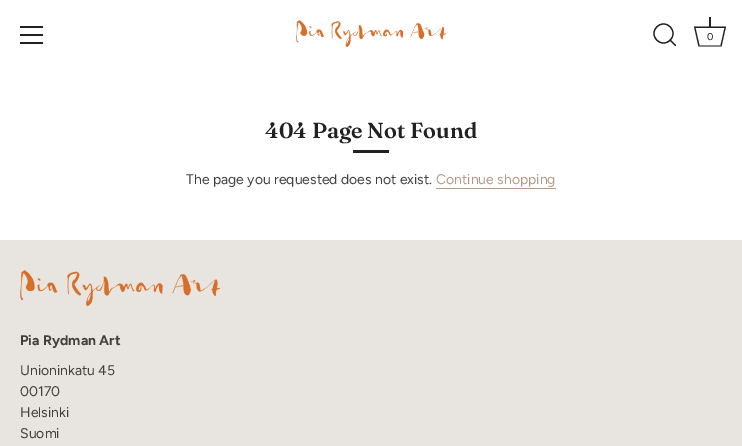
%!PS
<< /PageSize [742 446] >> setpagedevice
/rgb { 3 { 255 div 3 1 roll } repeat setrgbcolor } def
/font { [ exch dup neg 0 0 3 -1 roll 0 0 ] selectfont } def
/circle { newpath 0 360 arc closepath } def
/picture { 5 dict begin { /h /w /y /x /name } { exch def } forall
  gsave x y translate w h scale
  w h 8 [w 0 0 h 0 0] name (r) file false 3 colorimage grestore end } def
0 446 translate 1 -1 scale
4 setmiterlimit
255 255 255 rgb
0 0 742 446 rectfill
[
  [20 26 23 2 33 33 33]
  [20 34 23 2 33 33 33]
  [20 42 23 2 33 33 33]
] { aload pop rgb rectfill } forall
(img/1.rgb) 296 20 150 27 picture
1.2 setlinewidth
663.5 33.5 9.5 circle stroke
1 setlinecap
1 setlinejoin
675.5 45.5 moveto 670 40 lineto stroke
724.5 28 moveto 720.5 45.5 lineto 699.5 45.5 lineto 695.5 28 lineto 724.5 28 lineto 726 26.5 moveto 694 26.5 lineto 698.5 46.5 lineto 721.5 46.5 lineto closepath fill
[
  [709 17 2 10 33 33 33]
  [353 150 36 3 33 33 33]
  [436 188 120 1 183 153 135]
  [0 240 742 206 232 228 223]
] { aload pop rgb rectfill } forall
(img/2.rgb) 20 270 200 36 picture
/Figtree-Regular 10 font
33 33 33 rgb
707 40 moveto (0) show
/Fraunces-SemiBold 21.75 font
265 138 moveto (404 Page Not Found) show
/Figtree-Regular 14 font
66 63 63 rgb
186 184 moveto (The page you requested does not exist.) show
183 153 135 rgb
436 184 moveto (Continue shopping) show
/Figtree-Bold 14 font
66 63 63 rgb
20 345 moveto (Pia Rydman Art) show
/Figtree-Regular 14 font
[
  [(Unioninkatu 45) 20 375]
  [(00170) 20 396]
  [(Helsinki) 20 417]
  [(Suomi) 20 438]
] { aload pop moveto show } forall
showpage
